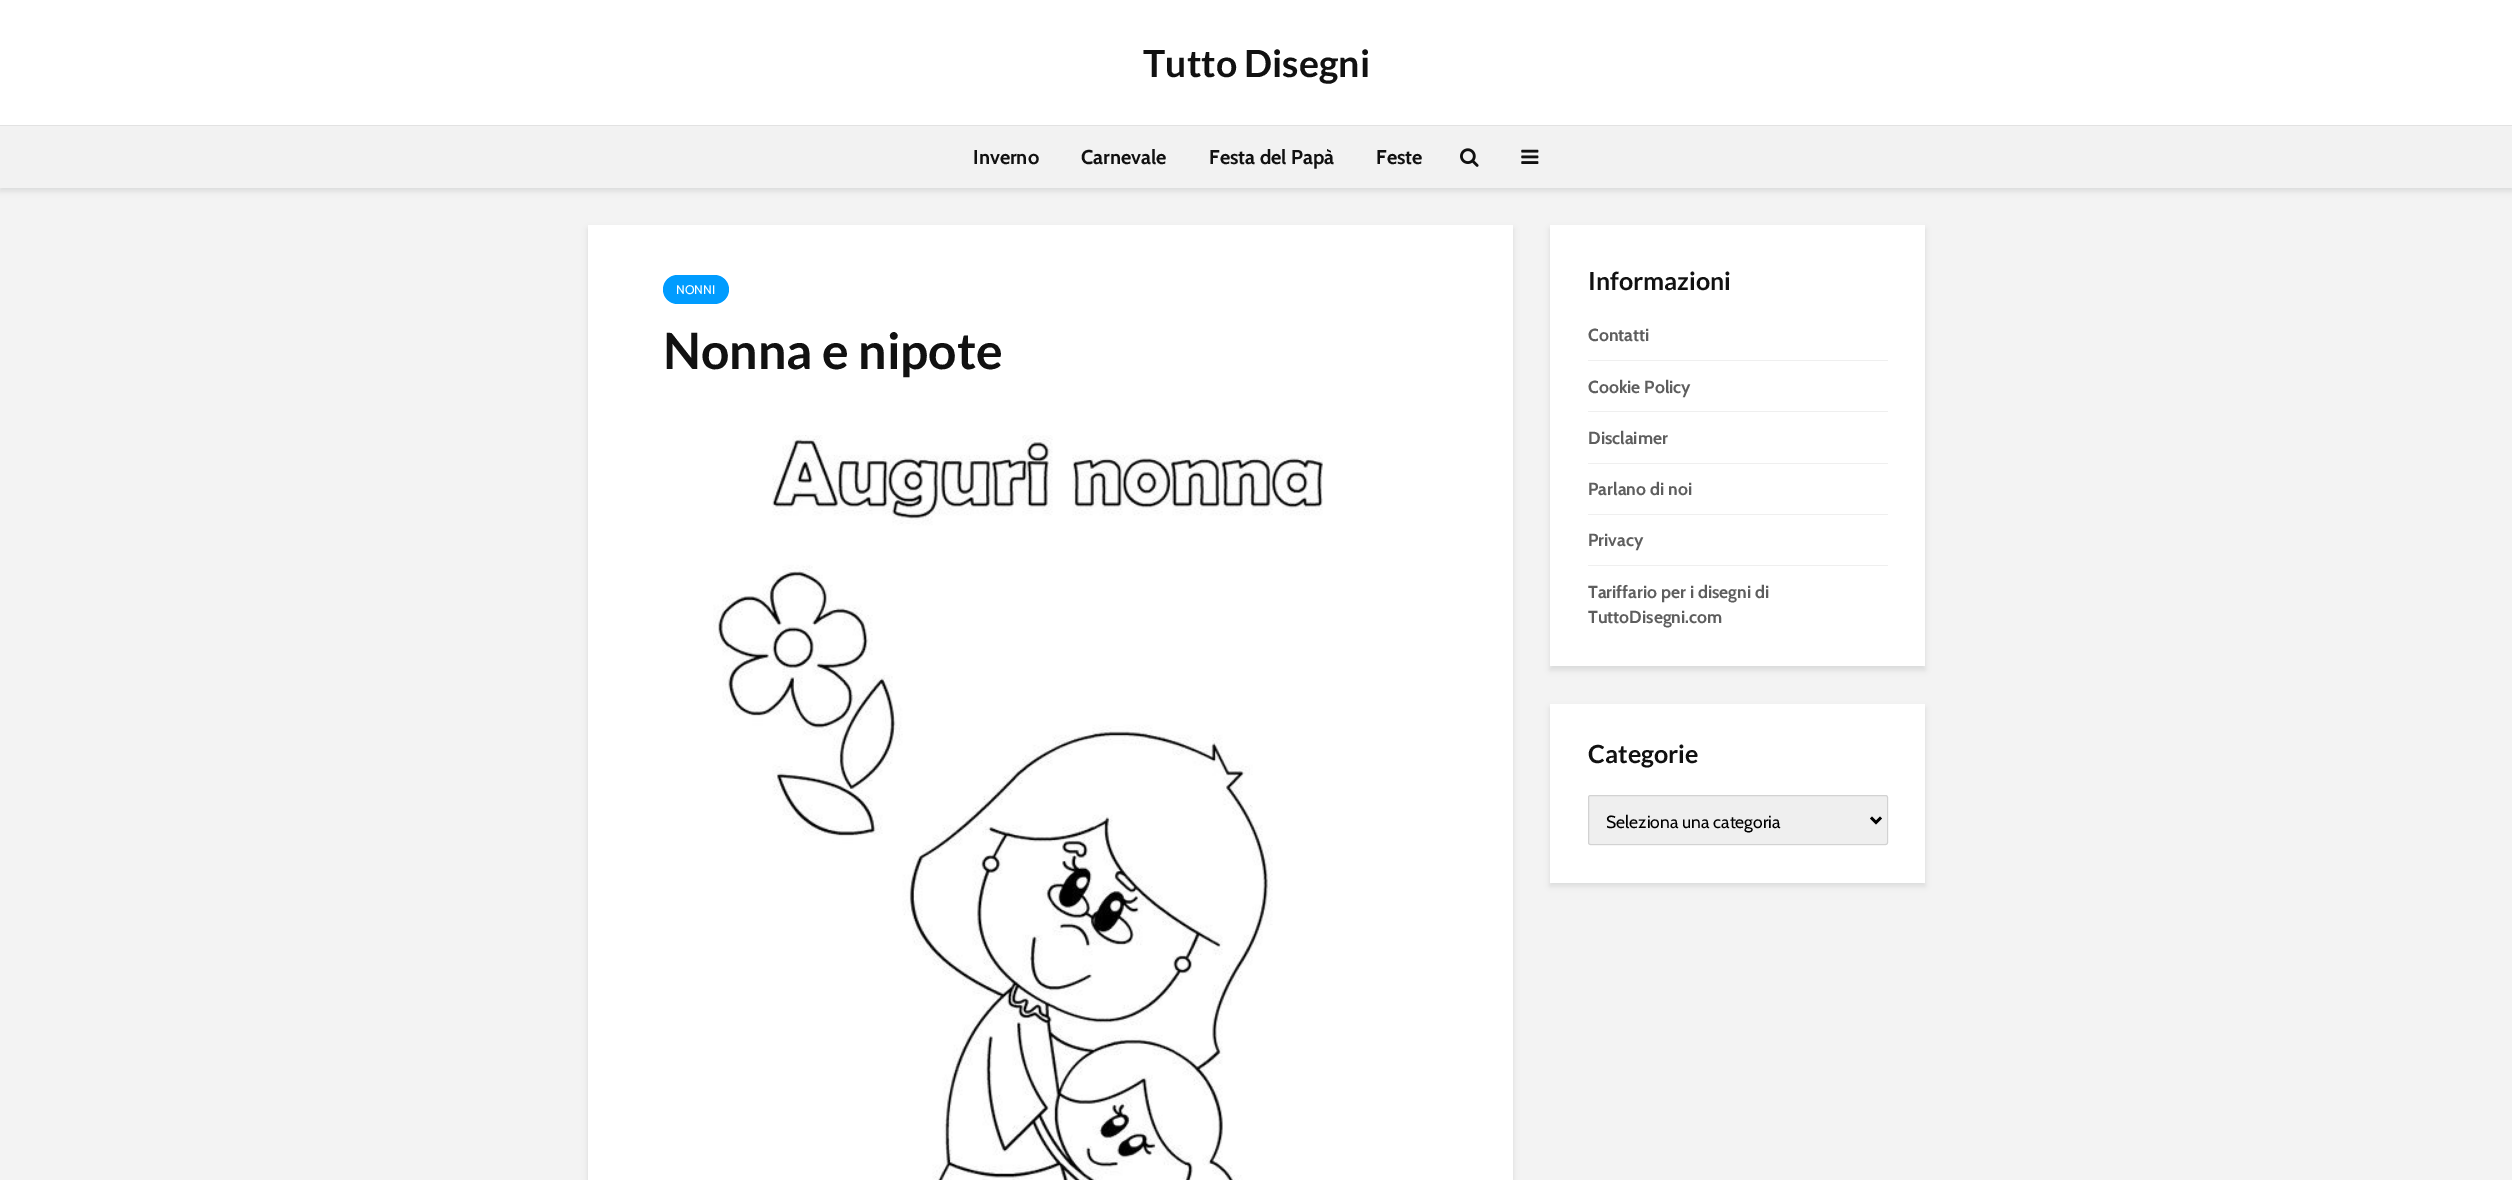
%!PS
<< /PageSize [2512 1180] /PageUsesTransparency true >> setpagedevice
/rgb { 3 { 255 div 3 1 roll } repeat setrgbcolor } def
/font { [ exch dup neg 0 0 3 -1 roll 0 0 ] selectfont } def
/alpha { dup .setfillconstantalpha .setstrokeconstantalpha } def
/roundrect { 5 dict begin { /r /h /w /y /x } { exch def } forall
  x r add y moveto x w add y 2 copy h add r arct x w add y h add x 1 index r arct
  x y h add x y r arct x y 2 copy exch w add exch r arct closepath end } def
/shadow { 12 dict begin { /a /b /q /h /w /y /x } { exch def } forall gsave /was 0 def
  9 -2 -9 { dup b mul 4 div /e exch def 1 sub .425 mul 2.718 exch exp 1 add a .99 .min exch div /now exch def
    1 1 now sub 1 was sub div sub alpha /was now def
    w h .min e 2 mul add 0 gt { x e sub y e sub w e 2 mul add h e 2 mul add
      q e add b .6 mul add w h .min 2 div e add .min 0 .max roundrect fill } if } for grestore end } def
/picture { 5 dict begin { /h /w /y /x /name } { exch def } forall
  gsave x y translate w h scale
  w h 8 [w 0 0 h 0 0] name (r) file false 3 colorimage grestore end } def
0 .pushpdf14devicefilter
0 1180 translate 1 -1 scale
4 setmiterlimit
243 243 243 rgb
0 0 2512 1180 rectfill
0 1 1 rgb
0 4 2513 187 0 3 0.1 shadow
[
  [0 0 2512 125 255 255 255]
  [0 126 2512 62 242 242 242]
  [0 125 2512 1 226 226 226]
] { aload pop rgb rectfill } forall
(img/1.rgb) 1460 148 19 19 picture
(img/2.rgb) 1521 149 18 15 picture
0 1 1 rgb
588 229 925 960 0 3 0.1 shadow
255 255 255 rgb
588 225 925 955 rectfill
0 156 255 rgb
663 275 66 29 14.5 roundrect fill
(img/3.rgb) 713 435 610 745 picture
0 1 1 rgb
1550 229 375 441 0 3 0.1 shadow
[
  [1550 225 375 441 255 255 255]
  [1588 360 300 1 239 239 239]
  [1588 411 300 1 239 239 239]
  [1588 463 300 1 239 239 239]
  [1588 514 300 1 239 239 239]
  [1588 565 300 1 239 239 239]
] { aload pop rgb rectfill } forall
0 1 1 rgb
1550 708 375 178 0 3 0.1 shadow
255 255 255 rgb
1550 704 375 179 rectfill
239 239 239 rgb
1588 795 300 50 2.5 roundrect fill
0.2 alpha
94 94 94 rgb
1588.5 795.5 299 49 2 roundrect stroke
1 alpha
0 0 0 rgb
2.5 setlinewidth
1871 817.5 moveto 1876 822.5 lineto 1881 817.5 lineto stroke
/Lato-Bold 37.5 font
17 17 17 rgb
1143 77 moveto (Tutto Disegni) show
/Cabin-Bold 20 font
[
  [(Inverno) 973 164]
  [(Carnevale) 1081 164]
  [(Festa del Papà) 1209 164]
  [(Feste) 1376 164]
] { aload pop moveto show } forall
/Cabin-Regular 12.5 font
255 255 255 rgb
676 294 moveto (NONNI) show
/Lato-Bold 50 font
17 17 17 rgb
663 369 moveto (Nonna e nipote) show
/Lato-Bold 25 font
1588 290 moveto (Informazioni) show
/Cabin-Bold 17.5 font
94 94 94 rgb
[
  [(Contatti) 1588 341]
  [(Cookie Policy) 1588 393]
  [(Disclaimer) 1588 444]
  [(Parlano di noi) 1588 495]
  [(Privacy) 1588 546]
  [(Tariffario per i disegni di) 1588 598]
  [(TuttoDisegni.com) 1588 623]
] { aload pop moveto show } forall
/Lato-Bold 25 font
17 17 17 rgb
1588 763 moveto (Categorie) show
/Cabin-Regular 17.5 font
0 0 0 rgb
1606 828 moveto (Seleziona una categoria) show
.poppdf14devicefilter showpage
